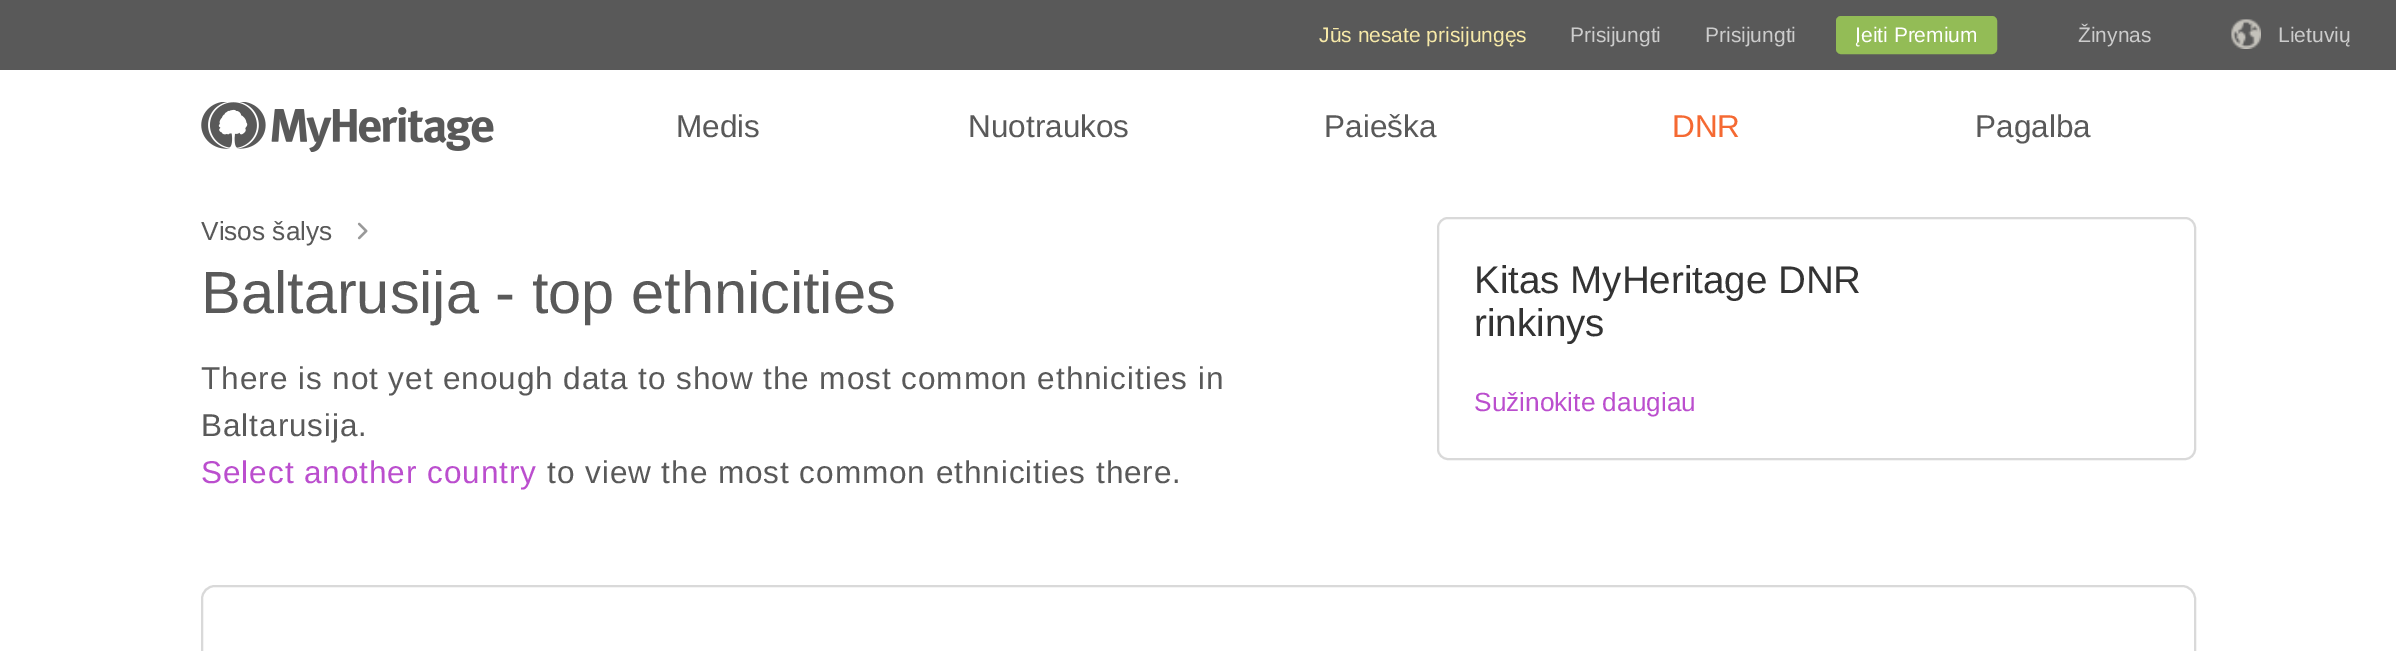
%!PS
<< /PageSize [2396 651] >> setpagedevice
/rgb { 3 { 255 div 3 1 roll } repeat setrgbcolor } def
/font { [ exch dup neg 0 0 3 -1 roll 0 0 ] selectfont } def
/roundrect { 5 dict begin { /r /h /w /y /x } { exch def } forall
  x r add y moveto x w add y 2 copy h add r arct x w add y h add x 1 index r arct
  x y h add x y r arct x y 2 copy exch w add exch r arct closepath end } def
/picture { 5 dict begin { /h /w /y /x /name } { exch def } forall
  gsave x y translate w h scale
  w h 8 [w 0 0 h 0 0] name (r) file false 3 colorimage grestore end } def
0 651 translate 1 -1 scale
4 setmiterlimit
255 255 255 rgb
0 0 2396 651 rectfill
89 89 89 rgb
0 0 2396 70 rectfill
147 188 86 rgb
1837 17 159 36 4 roundrect gsave fill grestore
2 setlinewidth
stroke
(img/1.rgb) 2231 19 30 30 picture
(img/2.rgb) 201 102 293 50 picture
(img/3.rgb) 357 222 11 18 picture
217 217 217 rgb
1438 218 757 241 10 roundrect stroke
202 586 1993 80 13 roundrect stroke
/LiberationSans-Regular 21 font
247 233 168 rgb
1319 42 moveto (Jūs nesate prisijungęs) show
204 204 204 rgb
1570 42 moveto (Prisijungti) show
1705 42 moveto (Prisijungti) show
255 255 255 rgb
1855 42 moveto (Įeiti Premium) show
204 204 204 rgb
2078 42 moveto (Žinynas) show
2278 42 moveto (Lietuvių) show
/LiberationSans-Regular 31.5 font
89 89 89 rgb
[
  [(Medis) 676 137]
  [(Nuotraukos) 968 137]
  [(Paieška) 1324 137]
] { aload pop moveto show } forall
245 105 50 rgb
1672 137 moveto (DNR) show
89 89 89 rgb
1975 137 moveto (Pagalba) show
/LiberationSans-Regular 26.25 font
201 240 moveto (Visos šalys) show
/LiberationSans-Regular 59.5 font
201 313 moveto (Baltarusija - top ethnicities) show
/LiberationSans-Regular 31.5 font
201 389 moveto 0.95 0 (There is not yet enough data to show the most common ethnicities in) ashow
201 436 moveto 0.95 0 (Baltarusija.) ashow
187 78 206 rgb
201 483 moveto 0.95 0 (Select another country) ashow
89 89 89 rgb
547 483 moveto 0.95 0 (to view the most common ethnicities there.) ashow
/LiberationSans-Regular 38.5 font
51 51 51 rgb
1474 293 moveto (Kitas MyHeritage DNR) show
1474 336 moveto (rinkinys) show
/LiberationSans-Regular 26.25 font
187 78 206 rgb
1474 411 moveto (Sužinokite daugiau) show
showpage
